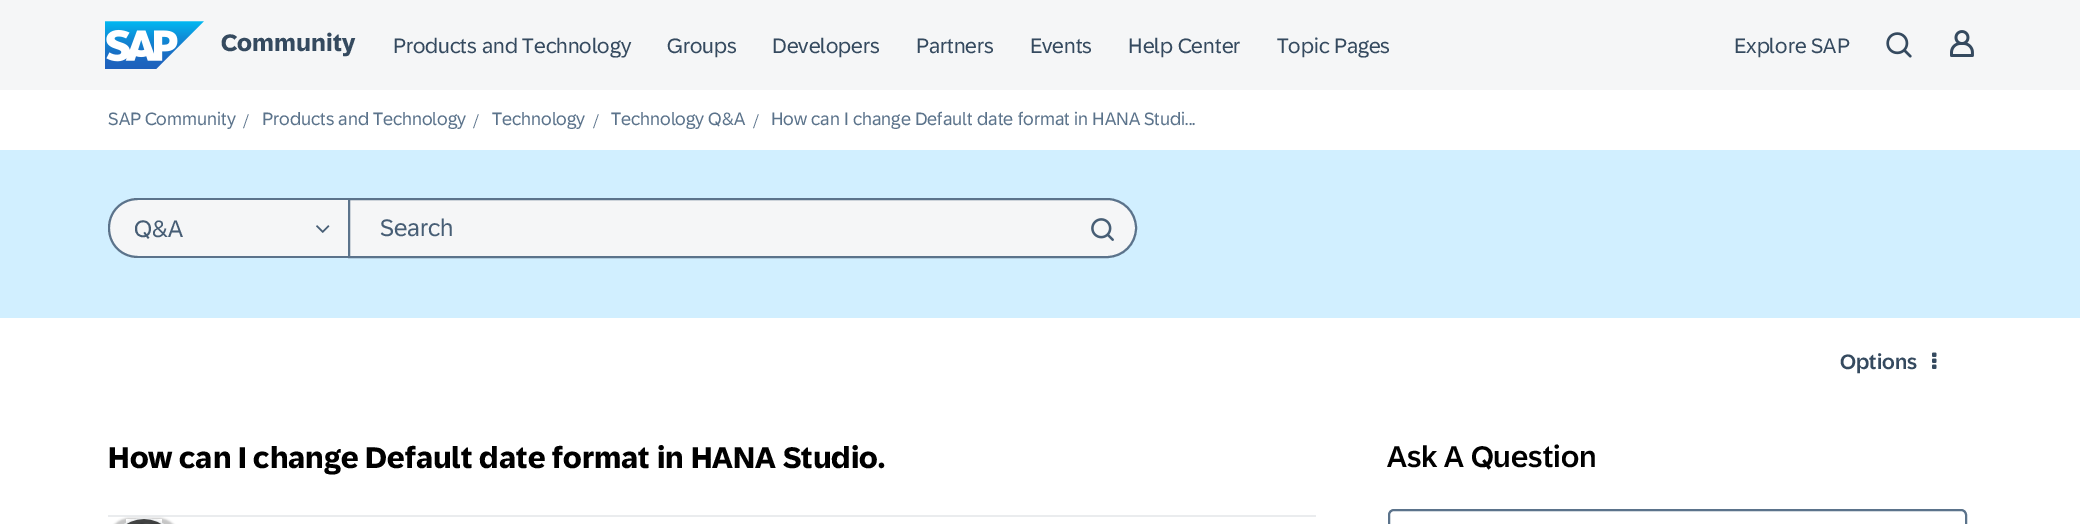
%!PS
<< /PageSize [2080 524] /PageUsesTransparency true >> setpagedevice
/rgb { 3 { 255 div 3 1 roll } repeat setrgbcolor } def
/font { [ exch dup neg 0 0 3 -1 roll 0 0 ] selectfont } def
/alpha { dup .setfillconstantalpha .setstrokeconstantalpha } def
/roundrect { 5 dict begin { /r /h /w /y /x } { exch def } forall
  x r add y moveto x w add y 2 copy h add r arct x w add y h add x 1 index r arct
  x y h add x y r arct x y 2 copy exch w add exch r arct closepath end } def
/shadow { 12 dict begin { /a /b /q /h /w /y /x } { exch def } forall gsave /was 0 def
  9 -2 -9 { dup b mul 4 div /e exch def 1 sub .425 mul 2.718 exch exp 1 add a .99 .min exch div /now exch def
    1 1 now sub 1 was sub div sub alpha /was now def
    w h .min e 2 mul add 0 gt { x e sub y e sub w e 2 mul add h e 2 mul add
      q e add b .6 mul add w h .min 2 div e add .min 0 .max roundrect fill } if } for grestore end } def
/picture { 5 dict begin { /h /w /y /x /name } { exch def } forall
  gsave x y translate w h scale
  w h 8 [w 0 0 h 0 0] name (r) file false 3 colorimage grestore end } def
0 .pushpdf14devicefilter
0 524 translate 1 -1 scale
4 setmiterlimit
255 255 255 rgb
0 0 2080 524 rectfill
245 246 247 rgb
0 0 2080 90 rectfill
(img/1.rgb) 105 21 99 48 picture
(img/2.rgb) 1886 32 26 26 picture
(img/3.rgb) 1950 30 24 27 picture
209 239 255 rgb
0 150 2080 168 rectfill
245 246 247 rgb
138 198 moveto 348 198 lineto 348 258 lineto 138 258 lineto 121.5 258 108 244.5 108 228 curveto 108 211.5 121.5 198 138 198 curveto closepath fill
91 115 139 rgb
138 198 moveto 348 198 lineto 348 258 lineto 138 258 lineto 121 258 108 245 108 228 curveto 108 211 121 198 138 198 curveto closepath 138 200 moveto 348 200 lineto 348 256 lineto 138 256 lineto 122 256 110 244 110 228 curveto 110 212 122 200 138 200 curveto closepath eofill
(img/4.rgb) 316 225 14 8 picture
245 246 247 rgb
349 199 moveto 1107 199 lineto 1123 199 1136 212 1136 228 curveto 1136 244 1123 257 1107 257 curveto 349 257 lineto closepath gsave fill grestore
91 115 139 rgb
2 setlinewidth
stroke
(img/5.rgb) 1091 218 23 23 picture
(img/6.rgb) 1932 352 5 17 picture
234 236 238 rgb
108 515 1208 2 rectfill
196 196 196 rgb
108 518 72 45 36 1 1 shadow
234 236 238 rgb
109 519 70 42 35 roundrect stroke
(img/7.rgb) 126 519 36 5 picture
91 115 139 rgb
1389 510 577 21 5 roundrect stroke
/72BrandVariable-Bold 24 font
53 74 95 rgb
221 51 moveto (Community) show
/72BrandVariable-Regular 21 font
[
  [(Products and Technology) 393 53]
  [(Groups) 667 53]
  [(Developers) 772 53]
  [(Partners) 916 53]
  [(Events) 1030 53]
  [(Help Center) 1128 53]
  [(Topic Pages) 1277 53]
  [(Explore SAP) 1734 53]
] { aload pop moveto show } forall
/72BrandVariable-Regular 18 font
91 115 139 rgb
108 125 moveto (SAP Community) show
/LiberationSerif-Regular 21 font
243 128 moveto (/) show
/72BrandVariable-Regular 18 font
262 125 moveto (Products and Technology) show
/LiberationSerif-Regular 21 font
473 128 moveto (/) show
/72BrandVariable-Regular 18 font
492 125 moveto (Technology) show
/LiberationSerif-Regular 21 font
593 128 moveto (/) show
/72BrandVariable-Regular 18 font
611 125 moveto (Technology Q&A) show
/LiberationSerif-Regular 21 font
753 128 moveto (/) show
/72BrandVariable-Regular 18 font
771 125 moveto (How can I change Default date format in HANA Studi...) show
/72BrandVariable-Regular 24 font
71 94 117 rgb
134 237 moveto (Q&A) show
380 236 moveto (Search) show
/72BrandVariable-Medium 21 font
53 74 95 rgb
1840 369 moveto (Options) show
/72BrandVariable-Bold 30 font
0 0 0 rgb
108 468 moveto (How can I change Default date format in HANA Studio.) show
/72BrandVariable-Medium 30 font
1387 467 moveto (Ask A Question) show
.poppdf14devicefilter showpage
